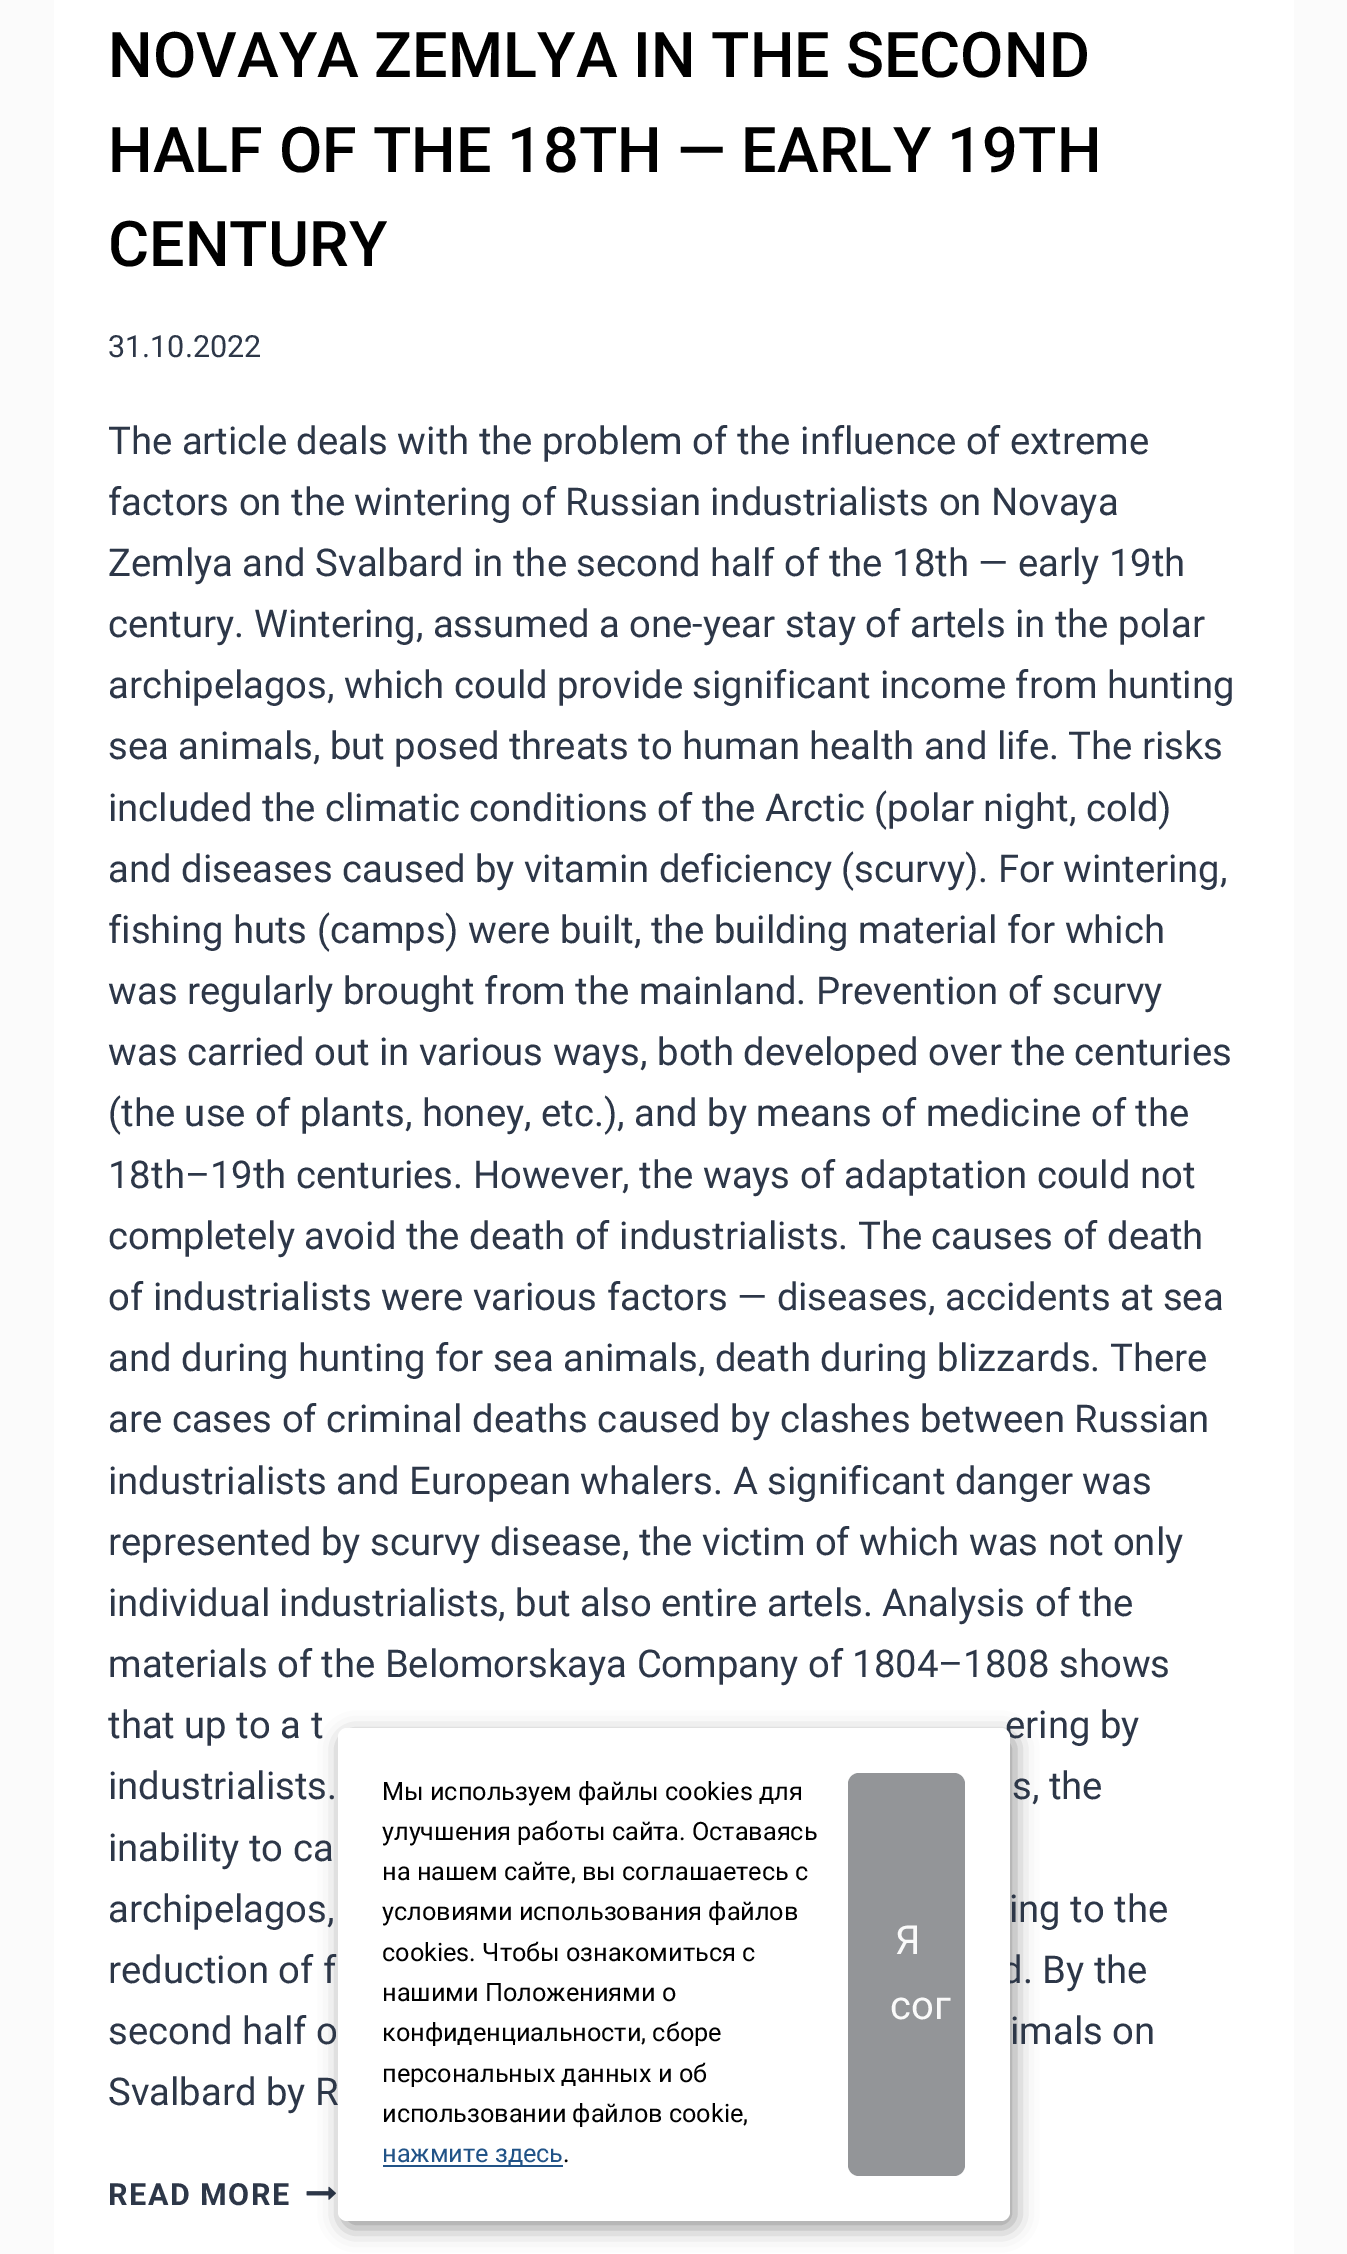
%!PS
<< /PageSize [1347 2254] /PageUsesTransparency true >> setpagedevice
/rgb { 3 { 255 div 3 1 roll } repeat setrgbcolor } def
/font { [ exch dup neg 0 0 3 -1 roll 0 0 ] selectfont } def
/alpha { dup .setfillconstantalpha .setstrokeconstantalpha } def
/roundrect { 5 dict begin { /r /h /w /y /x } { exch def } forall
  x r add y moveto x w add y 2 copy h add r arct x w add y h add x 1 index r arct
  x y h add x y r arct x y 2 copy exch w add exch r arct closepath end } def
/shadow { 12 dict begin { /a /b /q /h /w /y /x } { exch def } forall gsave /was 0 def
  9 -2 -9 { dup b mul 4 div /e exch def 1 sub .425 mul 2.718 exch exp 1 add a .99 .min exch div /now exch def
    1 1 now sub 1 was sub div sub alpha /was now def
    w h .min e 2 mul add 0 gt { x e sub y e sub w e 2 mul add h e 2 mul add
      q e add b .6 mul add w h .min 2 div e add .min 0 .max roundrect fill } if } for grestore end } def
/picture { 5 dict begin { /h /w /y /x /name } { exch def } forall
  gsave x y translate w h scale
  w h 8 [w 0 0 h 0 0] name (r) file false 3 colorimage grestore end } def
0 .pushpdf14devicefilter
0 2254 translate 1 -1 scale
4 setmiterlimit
251 251 251 rgb
0 0 1347 2254 rectfill
255 255 255 rgb
54 0 1240 2254 rectfill
(img/1.rgb) 306 2186 30 14 picture
0 0 0 rgb
342 1735 673 493 9 11 0.4 shadow
/Roboto-Medium 63 font
[
  [(NOVAYA ZEMLYA IN THE SECOND) 108 77]
  [(HALF OF THE 18TH — EARLY 19TH) 108 172]
  [(CENTURY) 108 266]
] { aload pop moveto show } forall
/Roboto-Regular 30.5 font
45 55 72 rgb
108 357 moveto (31.10.2022) show
/Roboto-Regular 38.25 font
[
  [(The article deals with the problem of the influence of extreme) 108 454]
  [(factors on the wintering of Russian industrialists on Novaya) 108 515]
  [(Zemlya and Svalbard in the second half of the 18th — early 19th) 108 576]
  [(century. Wintering, assumed a one-year stay of artels in the polar) 108 637]
  [(archipelagos, which could provide significant income from hunting) 108 698]
  [(sea animals, but posed threats to human health and life. The risks) 108 759]
  [(included the climatic conditions of the Arctic \(polar night, cold\)) 108 821]
  [(and diseases caused by vitamin deficiency \(scurvy\). For wintering,) 108 882]
  [(fishing huts \(camps\) were built, the building material for which) 108 943]
  [(was regularly brought from the mainland. Prevention of scurvy) 108 1004]
  [(was carried out in various ways, both developed over the centuries) 108 1065]
  [(\(the use of plants, honey, etc.\), and by means of medicine of the) 108 1126]
  [(18th–19th centuries. However, the ways of adaptation could not) 108 1188]
  [(completely avoid the death of industrialists. The causes of death) 108 1249]
  [(of industrialists were various factors — diseases, accidents at sea) 108 1310]
  [(and during hunting for sea animals, death during blizzards. There) 108 1371]
  [(are cases of criminal deaths caused by clashes between Russian) 108 1432]
  [(industrialists and European whalers. A significant danger was) 108 1494]
  [(represented by scurvy disease, the victim of which was not only) 108 1555]
  [(individual industrialists, but also entire artels. Analysis of the) 108 1616]
  [(materials of the Belomorskaya Company of 1804–1808 shows) 108 1677]
  [(that up to a t) 108 1738]
  [(ering by) 1005 1738]
  [(industrialists.) 108 1799]
  [(s, the) 1012 1799]
  [(inability to ca) 108 1861]
  [(archipelagos,) 108 1922]
  [(ing to the) 1009 1922]
  [(reduction of f) 108 1983]
  [(d. By the) 1001 1983]
  [(second half o) 108 2044]
  [(imals on) 1010 2044]
  [(Svalbard by R) 108 2105]
] { aload pop moveto show } forall
/Roboto-Bold 30.5 font
108 2205 moveto 1.5 0 (READ MORE) ashow
255 255 255 rgb
338 1728 672 493 9 roundrect fill
/Roboto-Regular 25.25 font
0 0 0 rgb
[
  [(Мы используем файлы cookies для) 382 1800]
  [(улучшения работы сайта. Оставаясь) 382 1840]
  [(на нашем сайте, вы соглашаетесь с) 382 1880]
  [(условиями использования файлов) 382 1920]
  [(cookies. Чтобы ознакомиться с) 382 1961]
  [(нашими Положениями о) 382 2001]
  [(конфиденциальности, сборе) 382 2041]
  [(персональных данных и об) 382 2082]
  [(использовании файлов cookie,) 382 2122]
] { aload pop moveto show } forall
33 83 135 rgb
383 2165 180 2 rectfill
382 2162 moveto (нажмите здесь) show
0 0 0 rgb
563 2162 moveto (.) show
147 149 152 rgb
848 1773 117 403 11 roundrect fill
/Roboto-Regular 40 font
250 250 250 rgb
895 1954 moveto (Я) show
890 2019 moveto (сог) show
.poppdf14devicefilter showpage
